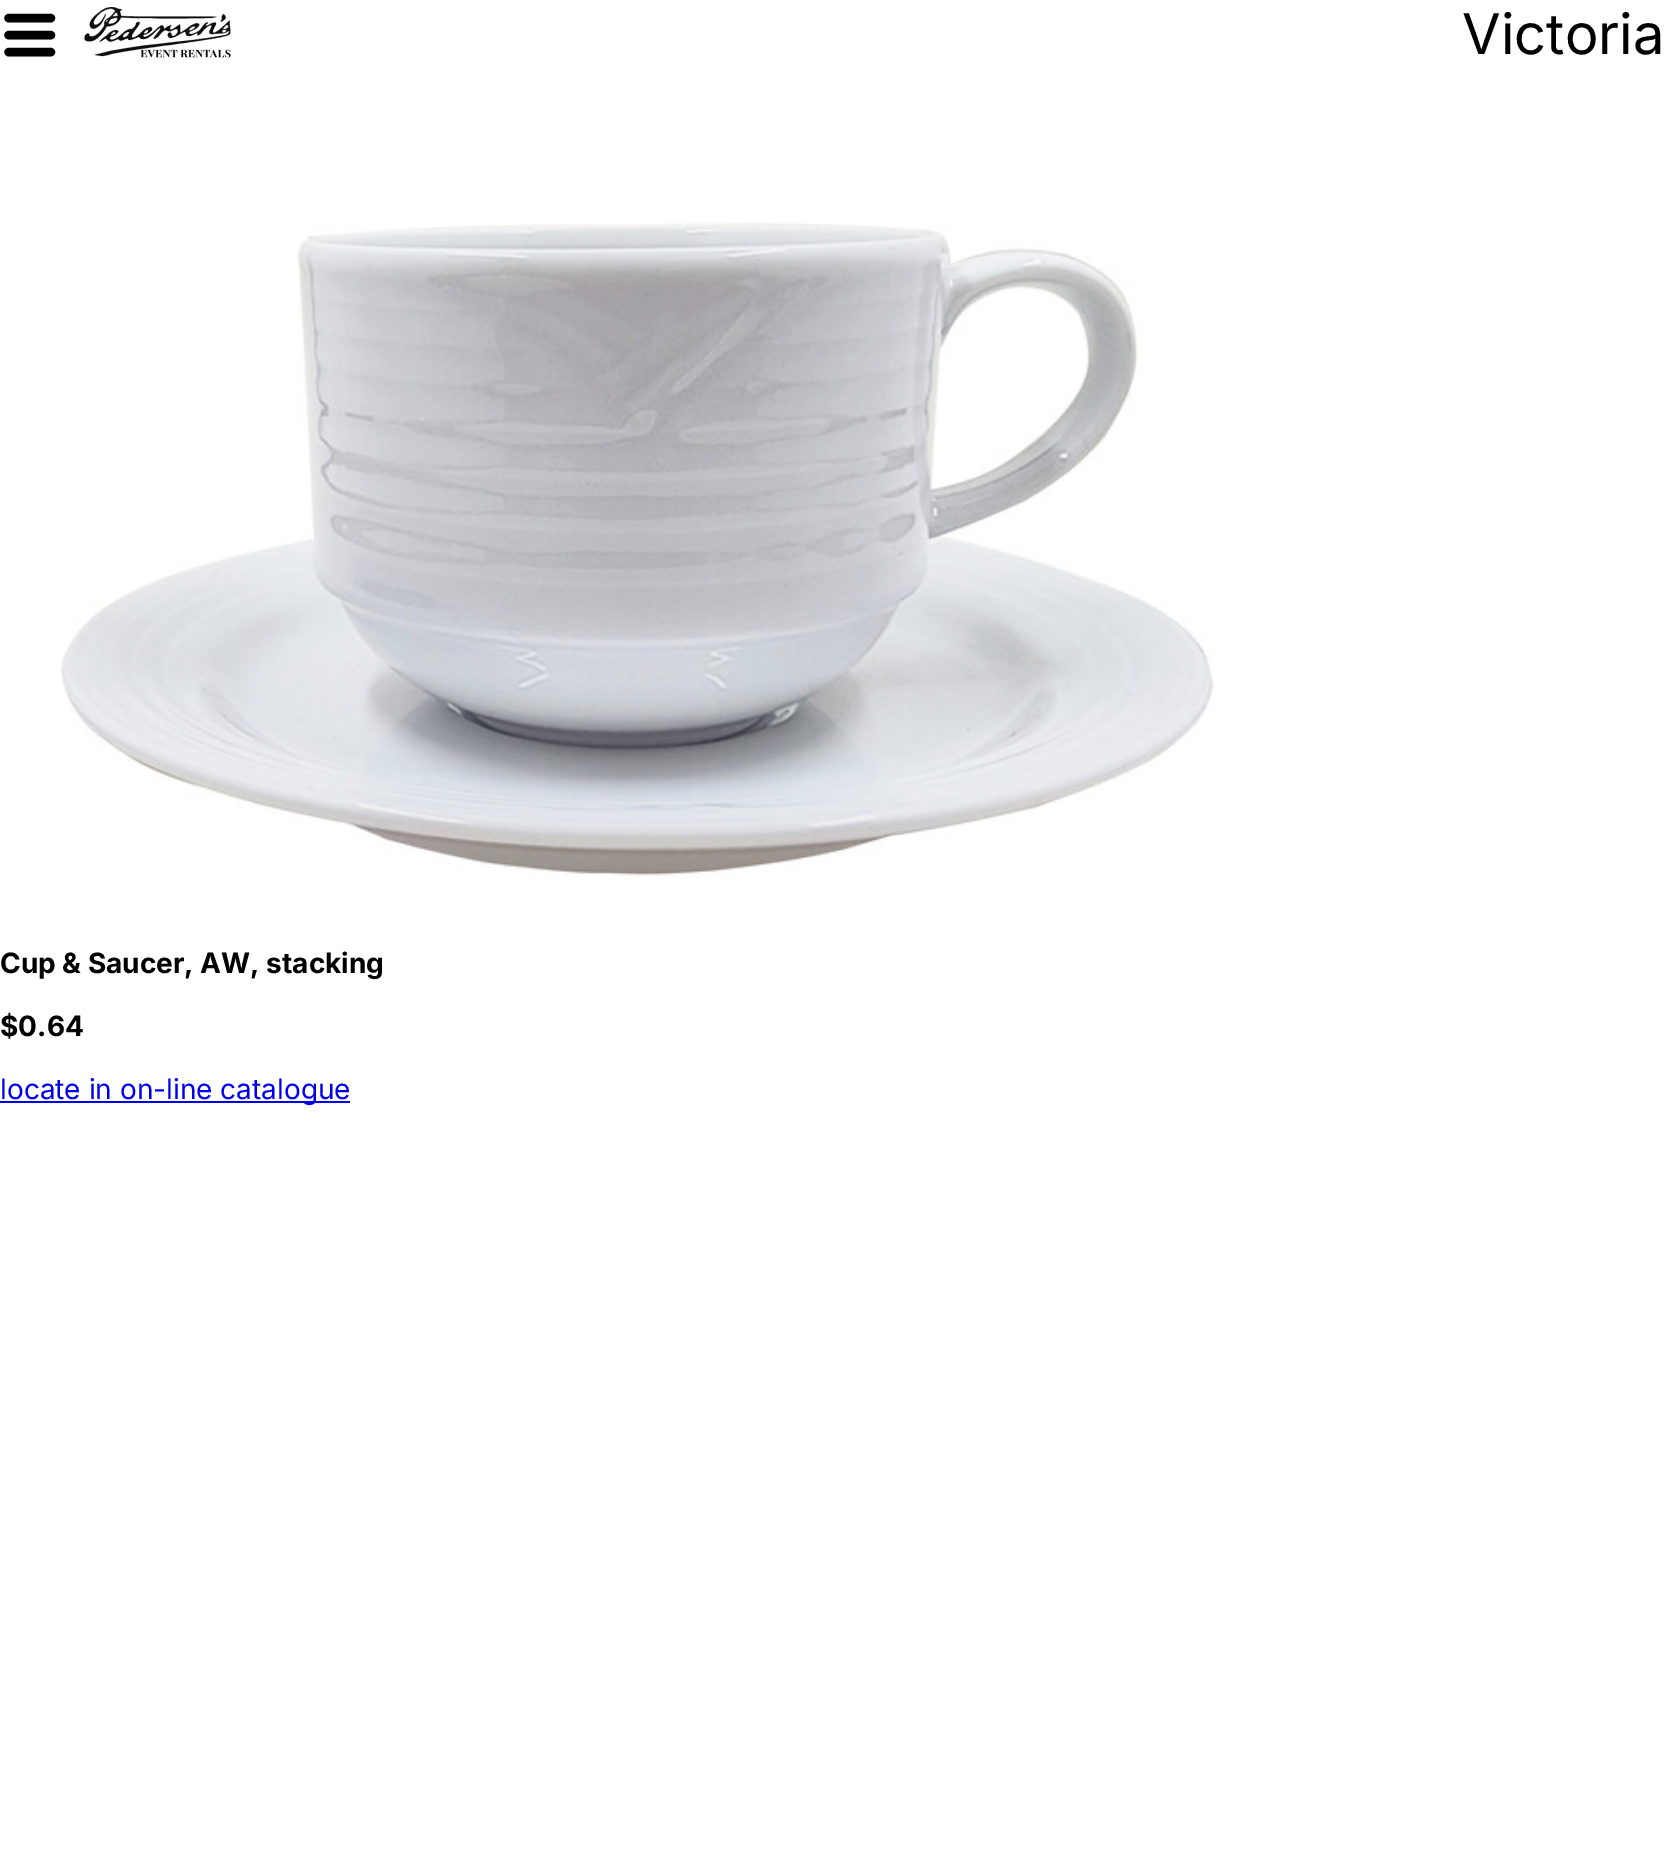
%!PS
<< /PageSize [1664 1862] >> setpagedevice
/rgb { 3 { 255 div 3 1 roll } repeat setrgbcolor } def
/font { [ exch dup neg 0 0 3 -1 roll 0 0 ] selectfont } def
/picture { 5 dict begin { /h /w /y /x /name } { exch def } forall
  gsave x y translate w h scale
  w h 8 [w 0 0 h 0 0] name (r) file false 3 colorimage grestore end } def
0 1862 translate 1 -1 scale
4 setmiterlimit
255 255 255 rgb
0 0 1664 1862 rectfill
0 0 0 rgb
8.4 setlinewidth
1 setlinecap
8.5 52 moveto 51 52 lineto 8.5 35 moveto 51 35 lineto 8.5 18 moveto 51 18 lineto stroke
(img/1.rgb) 84 7 147 51 picture
(img/2.rgb) 61 222 1153 656 picture
0 0 238 rgb
0 1101 350 2 rectfill
/Inter-Regular 56 font
0 0 0 rgb
1462 54 moveto (Victoria) show
/Inter-Bold 28 font
0 973 moveto (Cup & Saucer, AW, stacking) show
0 1036 moveto ($0.64) show
/Inter-Regular 28 font
0 0 238 rgb
0 1099 moveto (locate in on-line catalogue) show
showpage
